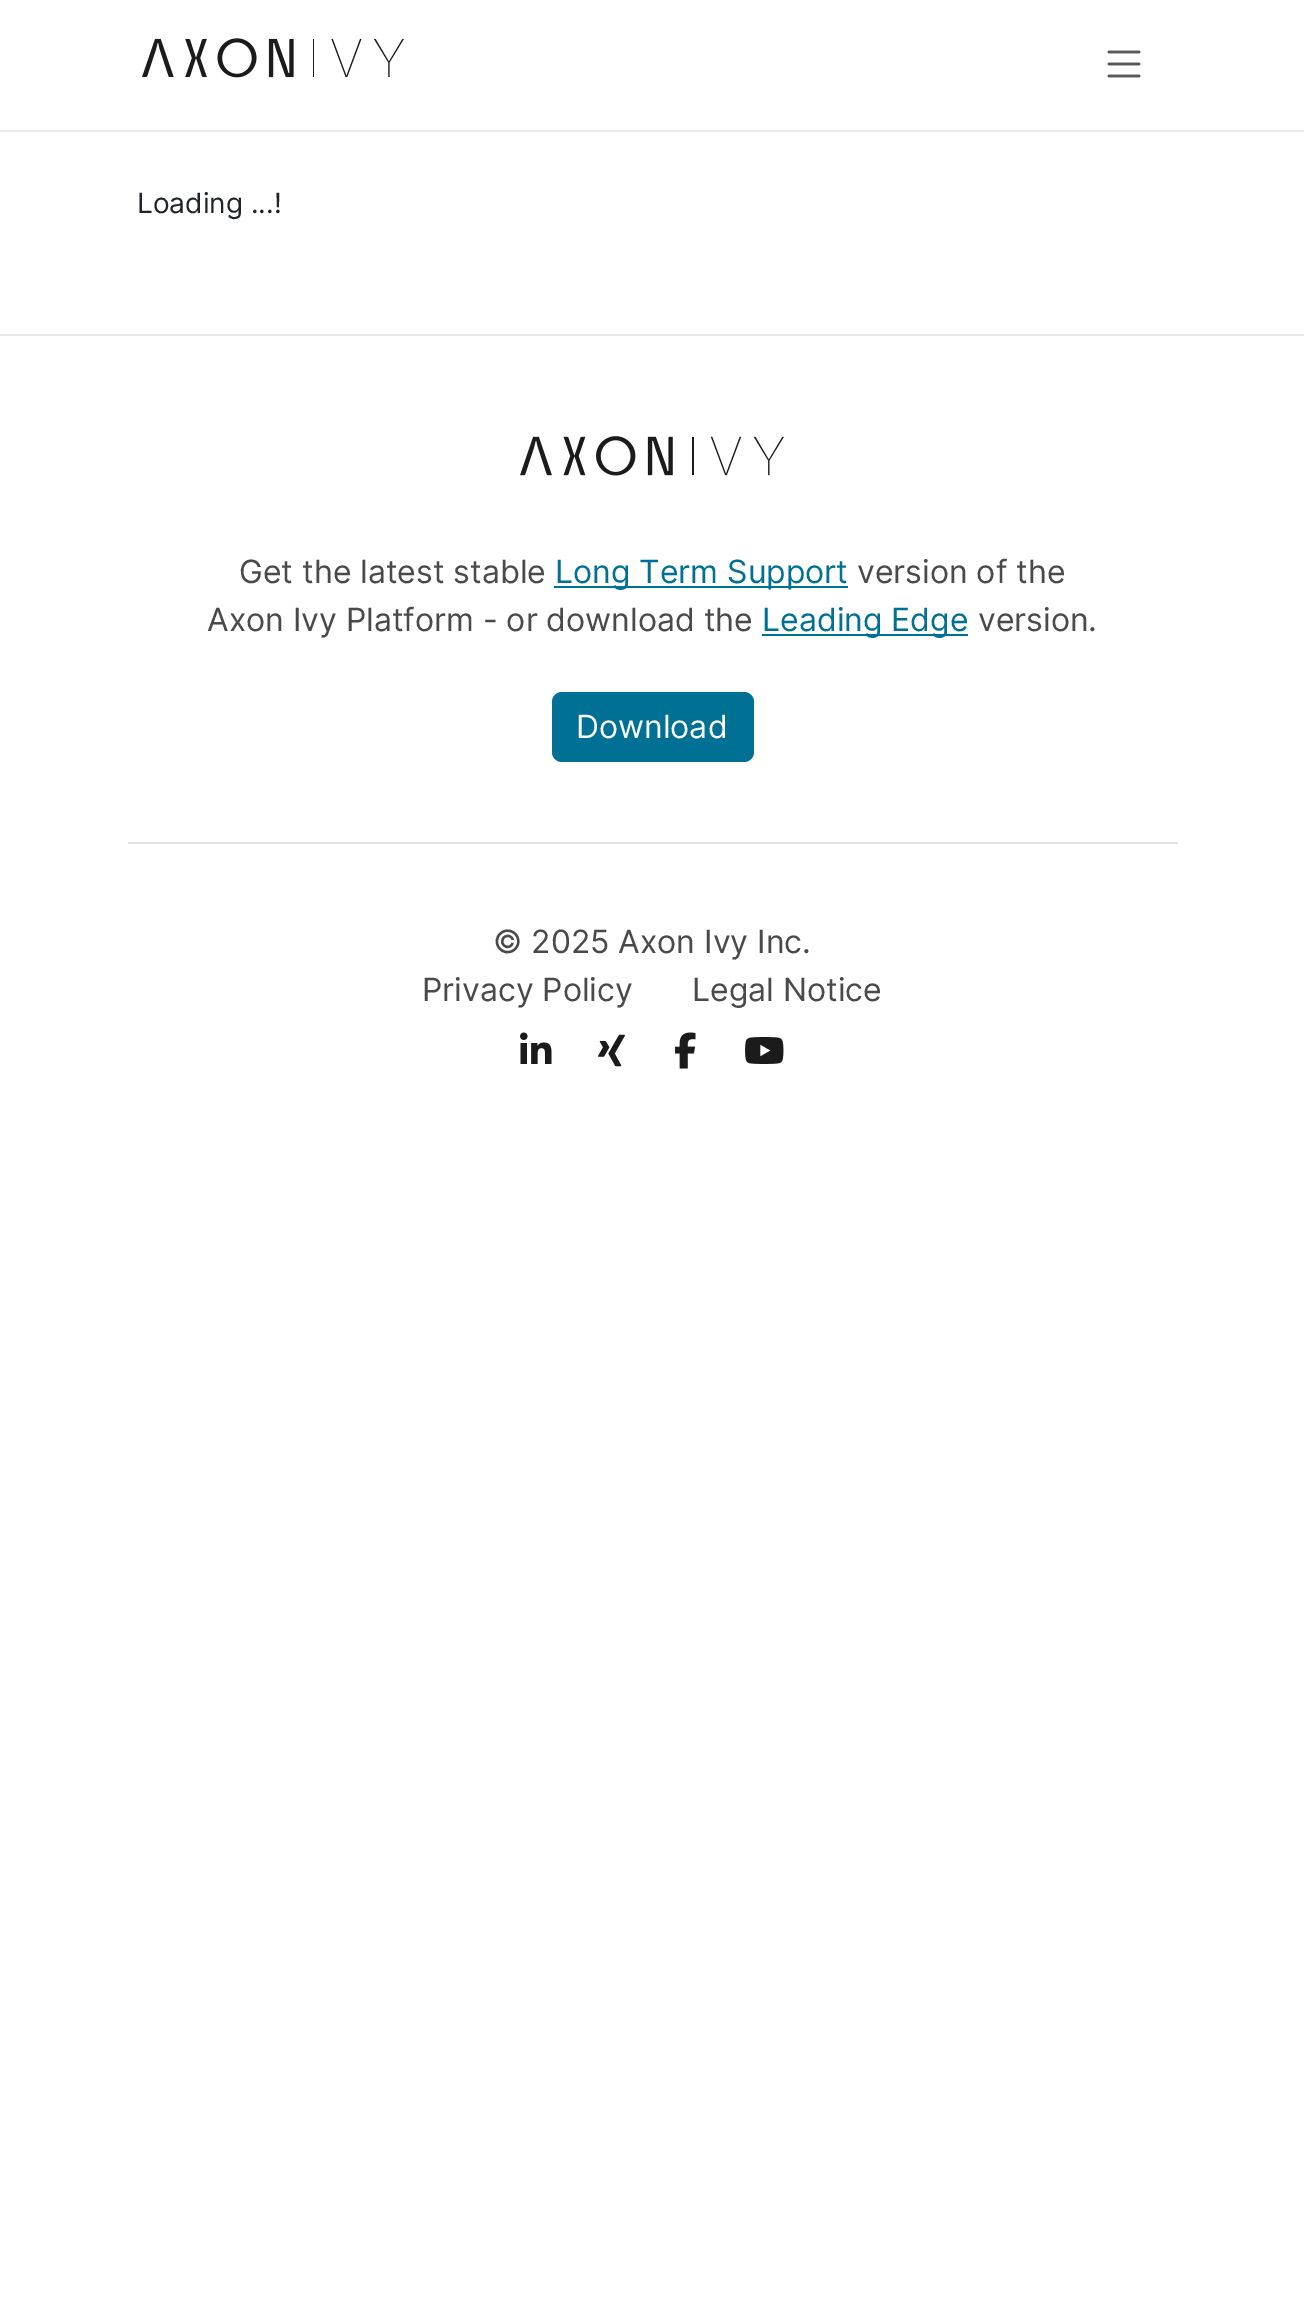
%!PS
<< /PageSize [1304 2309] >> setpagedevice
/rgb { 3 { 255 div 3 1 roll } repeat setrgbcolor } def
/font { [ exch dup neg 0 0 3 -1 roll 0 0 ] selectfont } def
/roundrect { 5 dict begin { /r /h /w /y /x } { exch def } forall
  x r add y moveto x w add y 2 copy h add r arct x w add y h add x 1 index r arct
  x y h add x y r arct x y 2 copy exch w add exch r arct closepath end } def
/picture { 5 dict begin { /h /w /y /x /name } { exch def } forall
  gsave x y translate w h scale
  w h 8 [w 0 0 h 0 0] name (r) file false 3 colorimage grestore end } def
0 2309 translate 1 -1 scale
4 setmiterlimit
255 255 255 rgb
0 0 1304 2309 rectfill
235 235 235 rgb
0 130 1304 2 rectfill
(img/1.rgb) 142 38 262 40 picture
(img/2.rgb) 1107 50 34 28 picture
231 231 231 rgb
0 334 1304 2 rectfill
222 226 230 rgb
128 842 1050 2 rectfill
(img/3.rgb) 520 436 264 40 picture
0 112 149 rgb
554 586 294 2 rectfill
762 634 206 2 rectfill
552 692 202 70 10 roundrect fill
(img/4.rgb) 520 1032 32 32 picture
(img/5.rgb) 598 1034 27 33 picture
(img/6.rgb) 675 1032 21 37 picture
(img/7.rgb) 745 1037 39 27 picture
/Inter-Regular 28 font
33 37 41 rgb
137 213 moveto (Loading ...!) show
/Inter-Regular 32 font
74 74 74 rgb
239 583 moveto (Get the latest stable) show
0 112 149 rgb
555 583 moveto (Long Term Support) show
74 74 74 rgb
857 583 moveto (version of the) show
207 631 moveto (Axon Ivy Platform - or download the) show
0 112 149 rgb
762 631 moveto (Leading Edge) show
74 74 74 rgb
978 631 moveto (version.) show
250 250 250 rgb
576 738 moveto (Download) show
74 74 74 rgb
[
  [(© 2025 Axon Ivy Inc.) 493 953]
  [(Privacy Policy) 422 1001]
  [(Legal Notice) 692 1001]
] { aload pop moveto show } forall
showpage
